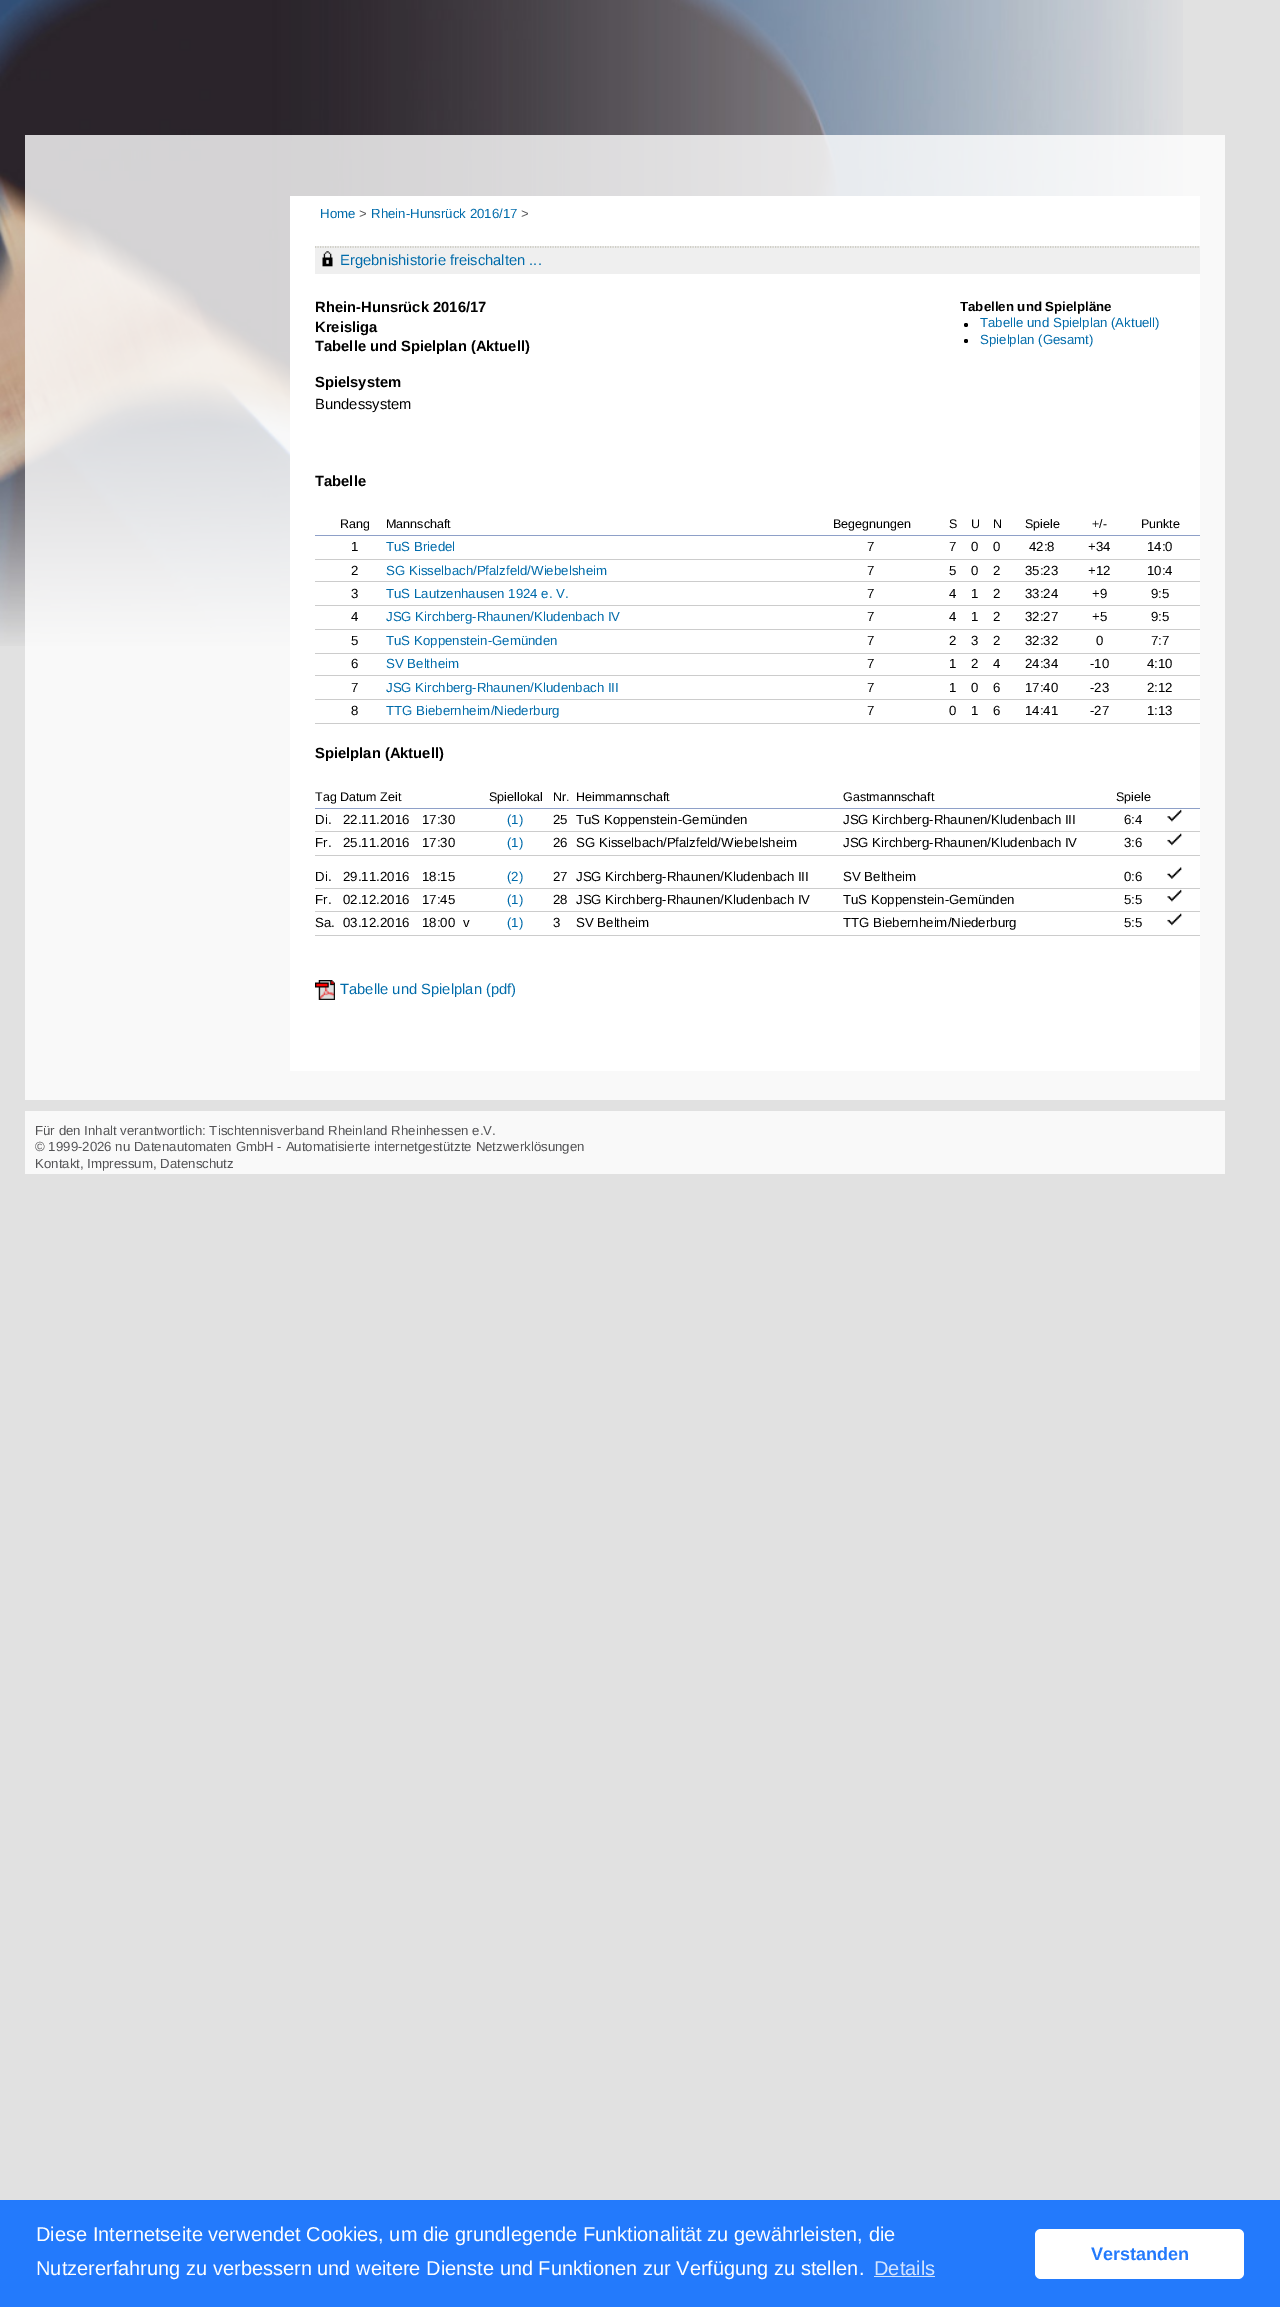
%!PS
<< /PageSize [1280 2307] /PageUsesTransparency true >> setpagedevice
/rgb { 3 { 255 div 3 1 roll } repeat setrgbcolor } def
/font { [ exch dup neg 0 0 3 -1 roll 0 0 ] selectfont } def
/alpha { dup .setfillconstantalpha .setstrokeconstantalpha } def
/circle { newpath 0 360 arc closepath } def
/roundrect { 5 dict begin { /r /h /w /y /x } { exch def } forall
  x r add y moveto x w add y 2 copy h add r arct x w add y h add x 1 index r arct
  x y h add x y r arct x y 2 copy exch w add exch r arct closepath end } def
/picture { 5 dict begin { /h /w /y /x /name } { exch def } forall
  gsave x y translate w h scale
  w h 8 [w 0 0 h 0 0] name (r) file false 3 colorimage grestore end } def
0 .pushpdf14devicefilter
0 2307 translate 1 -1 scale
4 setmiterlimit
225 225 225 rgb
0 0 1280 2307 rectfill
(img/1.rgb) 0 0 1183 646 picture
0.8 alpha
[
  [25 135 1200 965 255 255 255]
] { aload pop rgb rectfill } forall
1 alpha
[
  [290 196 910 875 255 255 255]
  [315 246 885 28 239 239 239]
] { aload pop rgb rectfill } forall
197 196 185 rgb
1.2 setlinewidth
[1.25 1.25] 0 setdash
315 247 moveto 1200 247 lineto stroke
(img/2.rgb) 322 251 11 16 picture
0 0 0 rgb
966 325 2 circle fill
966 341 2 circle fill
[
  [315 535 885 1 142 160 200]
  [315 559 885 1 204 204 204]
  [315 581 885 1 204 204 204]
  [315 605 885 1 204 204 204]
  [315 629 885 1 204 204 204]
  [315 653 885 1 204 204 204]
  [315 675 885 1 204 204 204]
  [315 699 885 1 204 204 204]
  [315 723 885 1 204 204 204]
  [315 808 885 1 142 160 200]
  [315 831 885 1 204 204 204]
] { aload pop rgb rectfill } forall
(img/3.rgb) 1167 809 15 13 picture
315 855 885 1 rectfill
(img/4.rgb) 1167 833 15 13 picture
315 888 885 1 rectfill
(img/5.rgb) 1167 867 15 12 picture
315 911 885 1 rectfill
(img/3.rgb) 1167 889 15 13 picture
315 935 885 1 rectfill
(img/4.rgb) 1167 913 15 13 picture
(img/6.rgb) 315 980 20 20 picture
[
  [25 1111 1200 63 249 249 249]
  [0 2200 1280 107 35 122 252]
  [874 2276 61 1 211 228 254]
] { aload pop rgb rectfill } forall
255 255 255 rgb
1035 2229 209 50 6 roundrect fill
/LiberationSans-Regular 13.25 font
0 107 170 rgb
320 218 moveto (Home) show
83 83 85 rgb
359 218 moveto (>) show
0 107 170 rgb
371 218 moveto (Rhein-Hunsrück 2016/17) show
83 83 85 rgb
521 218 moveto (>) show
/LiberationSans-Regular 14.75 font
0 107 170 rgb
340 265 moveto (Ergebnishistorie freischalten ...) show
/LiberationSans-Bold 14.75 font
0 0 0 rgb
[
  [(Rhein-Hunsrück 2016/17) 315 312]
  [(Kreisliga) 315 332]
  [(Tabelle und Spielplan \(Aktuell\)) 315 351]
  [(Spielsystem) 315 387]
] { aload pop moveto show } forall
/LiberationSans-Regular 14.75 font
315 409 moveto (Bundessystem) show
/LiberationSans-Bold 13.25 font
960 311 moveto (Tabellen und Spielpläne) show
/LiberationSans-Regular 13.25 font
0 107 170 rgb
980 327 moveto (Tabelle und Spielplan \(Aktuell\)) show
980 344 moveto (Spielplan \(Gesamt\)) show
/LiberationSans-Bold 14.75 font
0 0 0 rgb
315 486 moveto (Tabelle) show
/LiberationSans-Regular 12.5 font
[
  [(Rang) 340 528]
  [(Mannschaft) 386 528]
  [(Begegnungen) 833 528]
  [(S) 949 528]
  [(U) 971 528]
  [(N) 993 528]
  [(Spiele) 1025 528]
  [(+/-) 1092 528]
  [(Punkte) 1141 528]
] { aload pop moveto show } forall
/LiberationSans-Regular 13.25 font
351 551 moveto (1) show
0 107 170 rgb
386 551 moveto (TuS Briedel) show
0 0 0 rgb
[
  [(7) 867 551]
  [(7) 949 551]
  [(0) 971 551]
  [(0) 993 551]
  [(42:8) 1029 551]
  [(+34) 1088 551]
  [(14:0) 1147 551]
  [(2) 351 575]
] { aload pop moveto show } forall
0 107 170 rgb
386 575 moveto (SG Kisselbach/Pfalzfeld/Wiebelsheim) show
0 0 0 rgb
[
  [(7) 867 575]
  [(5) 949 575]
  [(0) 971 575]
  [(2) 993 575]
  [(35:23) 1025 575]
  [(+12) 1088 575]
  [(10:4) 1147 575]
  [(3) 351 598]
] { aload pop moveto show } forall
0 107 170 rgb
386 598 moveto (TuS Lautzenhausen 1924 e. V.) show
0 0 0 rgb
[
  [(7) 867 598]
  [(4) 949 598]
  [(1) 971 598]
  [(2) 993 598]
  [(33:24) 1025 598]
  [(+9) 1092 598]
  [(9:5) 1151 598]
  [(4) 351 621]
] { aload pop moveto show } forall
0 107 170 rgb
386 621 moveto (JSG Kirchberg-Rhaunen/Kludenbach IV) show
0 0 0 rgb
[
  [(7) 867 621]
  [(4) 949 621]
  [(1) 971 621]
  [(2) 993 621]
  [(32:27) 1025 621]
  [(+5) 1092 621]
  [(9:5) 1151 621]
  [(5) 351 645]
] { aload pop moveto show } forall
0 107 170 rgb
386 645 moveto (TuS Koppenstein-Gemünden) show
0 0 0 rgb
[
  [(7) 867 645]
  [(2) 949 645]
  [(3) 971 645]
  [(2) 993 645]
  [(32:32) 1025 645]
  [(0) 1096 645]
  [(7:7) 1151 645]
  [(6) 351 668]
] { aload pop moveto show } forall
0 107 170 rgb
386 668 moveto (SV Beltheim) show
0 0 0 rgb
[
  [(7) 867 668]
  [(1) 949 668]
  [(2) 971 668]
  [(4) 993 668]
  [(24:34) 1025 668]
  [(-10) 1090 668]
  [(4:10) 1147 668]
  [(7) 351 692]
] { aload pop moveto show } forall
0 107 170 rgb
386 692 moveto (JSG Kirchberg-Rhaunen/Kludenbach III) show
0 0 0 rgb
[
  [(7) 867 692]
  [(1) 949 692]
  [(0) 971 692]
  [(6) 993 692]
  [(17:40) 1025 692]
  [(-23) 1090 692]
  [(2:12) 1147 692]
  [(8) 351 715]
] { aload pop moveto show } forall
0 107 170 rgb
386 715 moveto (TTG Biebernheim/Niederburg) show
0 0 0 rgb
[
  [(7) 867 715]
  [(0) 949 715]
  [(1) 971 715]
  [(6) 993 715]
  [(14:41) 1025 715]
  [(-27) 1090 715]
  [(1:13) 1147 715]
] { aload pop moveto show } forall
/LiberationSans-Bold 14.75 font
315 758 moveto (Spielplan \(Aktuell\)) show
/LiberationSans-Regular 12.5 font
[
  [(Tag Datum Zeit) 315 801]
  [(Spiellokal) 489 801]
  [(Nr.) 553 801]
  [(Heimmannschaft) 576 801]
  [(Gastmannschaft) 843 801]
  [(Spiele) 1116 801]
] { aload pop moveto show } forall
/LiberationSans-Regular 13.25 font
[
  [(Di.) 315 824]
  [(22.11.2016) 343 824]
  [(17:30) 422 824]
] { aload pop moveto show } forall
0 107 170 rgb
507 824 moveto (\(1\)) show
0 0 0 rgb
[
  [(25) 553 824]
  [(TuS Koppenstein-Gemünden) 576 824]
  [(JSG Kirchberg-Rhaunen/Kludenbach III) 843 824]
  [(6:4) 1124 824]
  [(Fr.) 315 847]
  [(25.11.2016) 343 847]
  [(17:30) 422 847]
] { aload pop moveto show } forall
0 107 170 rgb
507 847 moveto (\(1\)) show
0 0 0 rgb
[
  [(26) 553 847]
  [(SG Kisselbach/Pfalzfeld/Wiebelsheim) 576 847]
  [(JSG Kirchberg-Rhaunen/Kludenbach IV) 843 847]
  [(3:6) 1124 847]
  [(Di.) 315 881]
  [(29.11.2016) 343 881]
  [(18:15) 422 881]
] { aload pop moveto show } forall
0 107 170 rgb
507 881 moveto (\(2\)) show
0 0 0 rgb
[
  [(27) 553 881]
  [(JSG Kirchberg-Rhaunen/Kludenbach III) 576 881]
  [(SV Beltheim) 843 881]
  [(0:6) 1124 881]
  [(Fr.) 315 904]
  [(02.12.2016) 343 904]
  [(17:45) 422 904]
] { aload pop moveto show } forall
0 107 170 rgb
507 904 moveto (\(1\)) show
0 0 0 rgb
[
  [(28) 553 904]
  [(JSG Kirchberg-Rhaunen/Kludenbach IV) 576 904]
  [(TuS Koppenstein-Gemünden) 843 904]
  [(5:5) 1124 904]
  [(Sa.) 315 927]
  [(03.12.2016) 343 927]
  [(18:00) 422 927]
  [(v) 463 927]
] { aload pop moveto show } forall
0 107 170 rgb
507 927 moveto (\(1\)) show
0 0 0 rgb
[
  [(3) 553 927]
  [(SV Beltheim) 576 927]
  [(TTG Biebernheim/Niederburg) 843 927]
  [(5:5) 1124 927]
] { aload pop moveto show } forall
/LiberationSans-Regular 14.75 font
0 107 170 rgb
340 994 moveto (Tabelle und Spielplan \(pdf\)) show
/LiberationSans-Regular 13.25 font
83 83 85 rgb
[
  [(Für den Inhalt verantwortlich: Tischtennisverband Rheinland Rheinhessen e.V.) 35 1135]
  [(© 1999-2026 nu Datenautomaten GmbH - Automatisierte internetgestützte Netzwerklösungen) 35 1151]
  [(Kontakt, Impressum, Datenschutz) 35 1168]
] { aload pop moveto show } forall
/LiberationSans-Regular 20 font
255 255 255 rgb
36 2241 moveto (Diese Internetseite verwendet Cookies, um die grundlegende Funktionalität zu gewährleisten, die) show
36 2275 moveto (Nutzererfahrung zu verbessern und weitere Dienste und Funktionen zur Verfügung zu stellen.) show
211 228 254 rgb
874 2275 moveto (Details) show
/LiberationSans-Bold 18 font
35 122 252 rgb
1091 2260 moveto (Verstanden) show
.poppdf14devicefilter showpage
